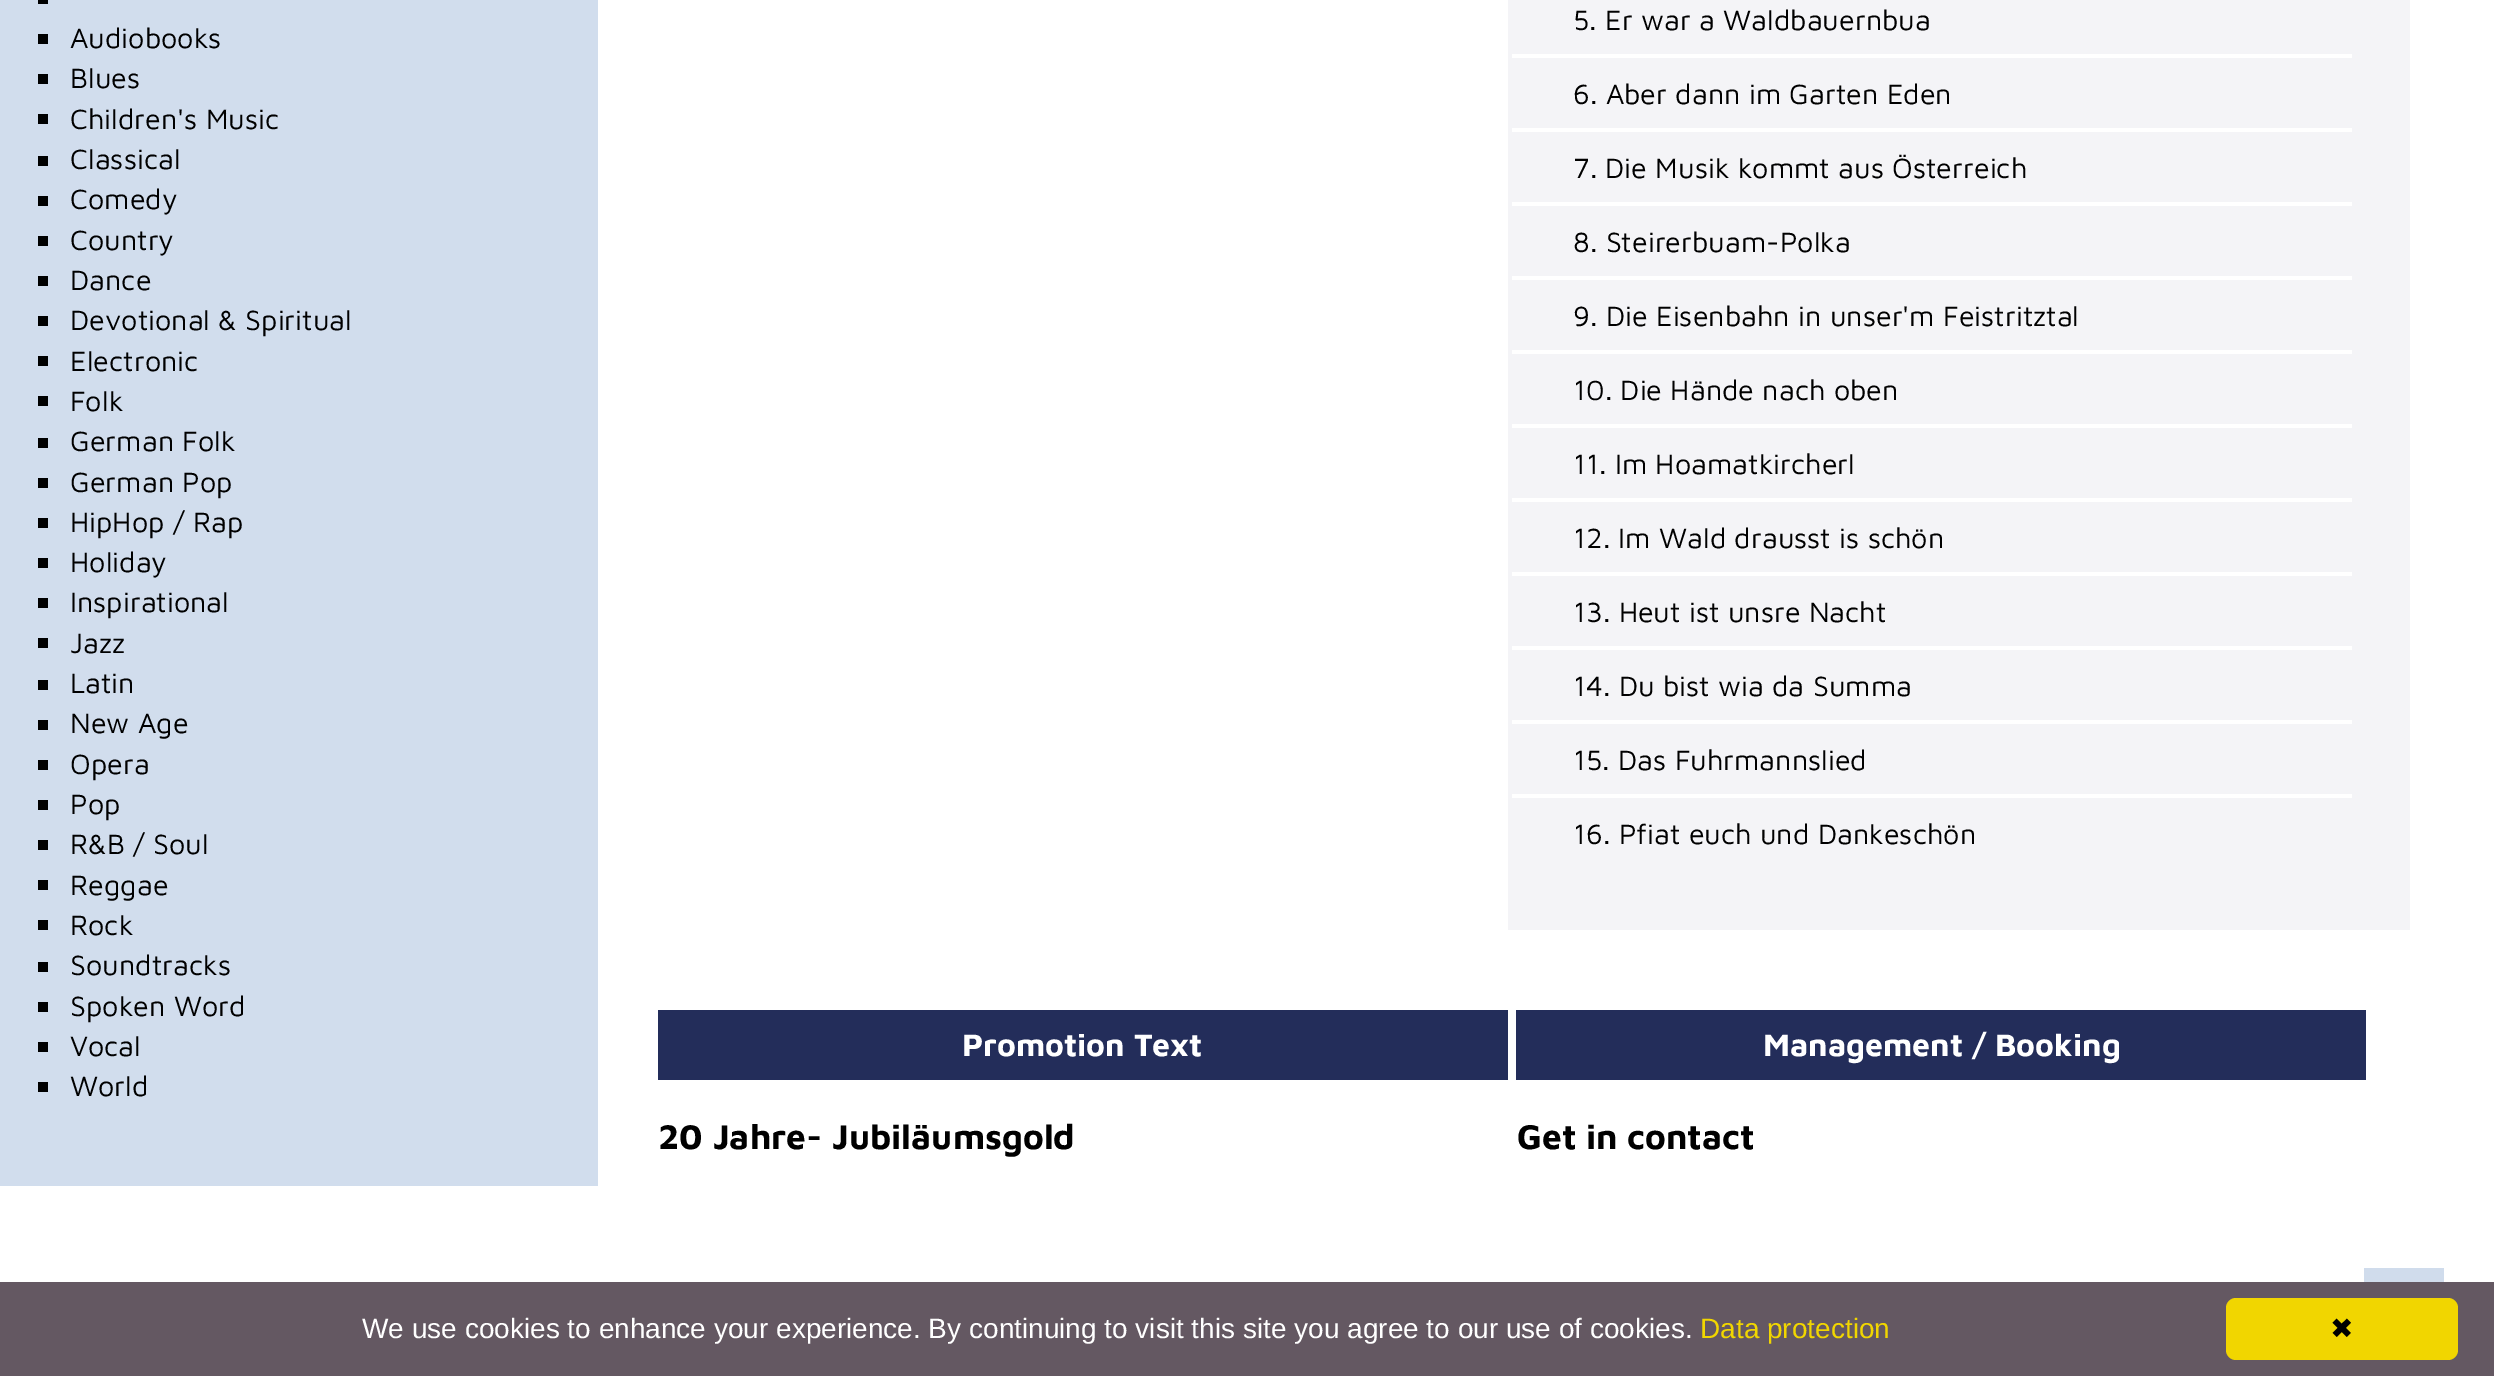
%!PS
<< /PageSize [2494 1376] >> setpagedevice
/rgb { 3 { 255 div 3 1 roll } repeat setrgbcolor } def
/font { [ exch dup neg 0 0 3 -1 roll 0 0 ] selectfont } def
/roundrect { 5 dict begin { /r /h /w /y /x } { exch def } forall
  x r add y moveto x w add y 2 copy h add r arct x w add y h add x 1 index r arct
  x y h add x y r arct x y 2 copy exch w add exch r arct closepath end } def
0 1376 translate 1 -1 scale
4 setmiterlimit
255 255 255 rgb
0 0 2494 1376 rectfill
[
  [0 0 598 1186 209 221 237]
  [38 0 10 4 0 0 0]
  [38 34 10 10 0 0 0]
  [38 74 10 10 0 0 0]
  [38 114 10 10 0 0 0]
  [38 156 10 10 0 0 0]
  [38 196 10 10 0 0 0]
  [38 236 10 10 0 0 0]
  [38 276 10 10 0 0 0]
  [38 316 10 10 0 0 0]
  [38 356 10 10 0 0 0]
  [38 396 10 10 0 0 0]
  [38 438 10 10 0 0 0]
  [38 478 10 10 0 0 0]
  [38 518 10 10 0 0 0]
  [38 558 10 10 0 0 0]
  [38 598 10 10 0 0 0]
  [38 638 10 10 0 0 0]
  [38 680 10 10 0 0 0]
  [38 720 10 10 0 0 0]
  [38 760 10 10 0 0 0]
  [38 800 10 10 0 0 0]
  [38 840 10 10 0 0 0]
  [38 880 10 10 0 0 0]
  [38 920 10 10 0 0 0]
  [38 962 10 10 0 0 0]
  [38 1002 10 10 0 0 0]
  [38 1042 10 10 0 0 0]
  [38 1082 10 10 0 0 0]
  [1508 0 902 930 244 244 247]
  [1512 54 840 4 255 255 255]
  [1512 128 840 4 255 255 255]
  [1512 202 840 4 255 255 255]
  [1512 276 840 4 255 255 255]
  [1512 350 840 4 255 255 255]
  [1512 424 840 4 255 255 255]
  [1512 498 840 4 255 255 255]
  [1512 572 840 4 255 255 255]
  [1512 646 840 4 255 255 255]
  [1512 720 840 4 255 255 255]
  [1512 794 840 4 255 255 255]
  [658 1010 850 70 35 45 90]
  [1516 1010 850 70 35 45 90]
  [2364 1268 80 14 208 220 236]
  [0 1282 2494 94 100 88 98]
] { aload pop rgb rectfill } forall
241 214 0 rgb
2226 1298 232 62 10 roundrect fill
/MavenPro-Regular 28.75 font
0 0 0 rgb
[
  [(Audiobooks) 70 48]
  [(Blues) 70 88]
  [(Children's Music) 70 129]
  [(Classical) 70 169]
  [(Comedy) 70 209]
  [(Country) 70 250]
  [(Dance) 70 290]
  [(Devotional & Spiritual) 70 330]
  [(Electronic) 70 371]
  [(Folk) 70 411]
  [(German Folk) 70 451]
  [(German Pop) 70 492]
  [(HipHop / Rap) 70 532]
  [(Holiday) 70 572]
  [(Inspirational) 70 612]
  [(Jazz) 70 653]
  [(Latin) 70 693]
  [(New Age) 70 733]
  [(Opera) 70 774]
  [(Pop) 70 814]
  [(R&B / Soul) 70 854]
  [(Reggae) 70 895]
  [(Rock) 70 935]
  [(Soundtracks) 70 975]
  [(Spoken Word) 70 1016]
  [(Vocal) 70 1056]
  [(World) 70 1096]
  [(5. Er war a Waldbauernbua) 1573 30]
  [(6. Aber dann im Garten Eden) 1573 104]
  [(7. Die Musik kommt aus Österreich) 1573 178]
  [(8. Steirerbuam-Polka) 1573 252]
  [(9. Die Eisenbahn in unser'm Feistritztal) 1573 326]
  [(10. Die Hände nach oben) 1573 400]
  [(11. Im Hoamatkircherl) 1573 474]
  [(12. Im Wald drausst is schön) 1573 548]
  [(13. Heut ist unsre Nacht) 1573 622]
  [(14. Du bist wia da Summa) 1573 696]
  [(15. Das Fuhrmannslied) 1573 770]
  [(16. Pfiat euch und Dankeschön) 1573 844]
] { aload pop moveto show } forall
/MavenPro-Bold 32 font
255 255 255 rgb
962 1056 moveto (Promotion Text) show
/MavenPro-Bold 35.25 font
0 0 0 rgb
658 1149 moveto (20 Jahre- Jubiläumsgold) show
/MavenPro-Bold 32 font
255 255 255 rgb
1763 1056 moveto (Management / Booking) show
/MavenPro-Bold 35.25 font
0 0 0 rgb
1517 1149 moveto (Get in contact) show
/LiberationSans-Regular 28 font
255 255 255 rgb
362 1338 moveto (We use cookies to enhance your experience. By continuing to visit this site you agree to our use of cookies.) show
241 214 0 rgb
1700 1338 moveto (Data protection) show
/DejaVuSans-Regular 28 font
0 0 0 rgb
2330 1338 moveto (✖) show
showpage
